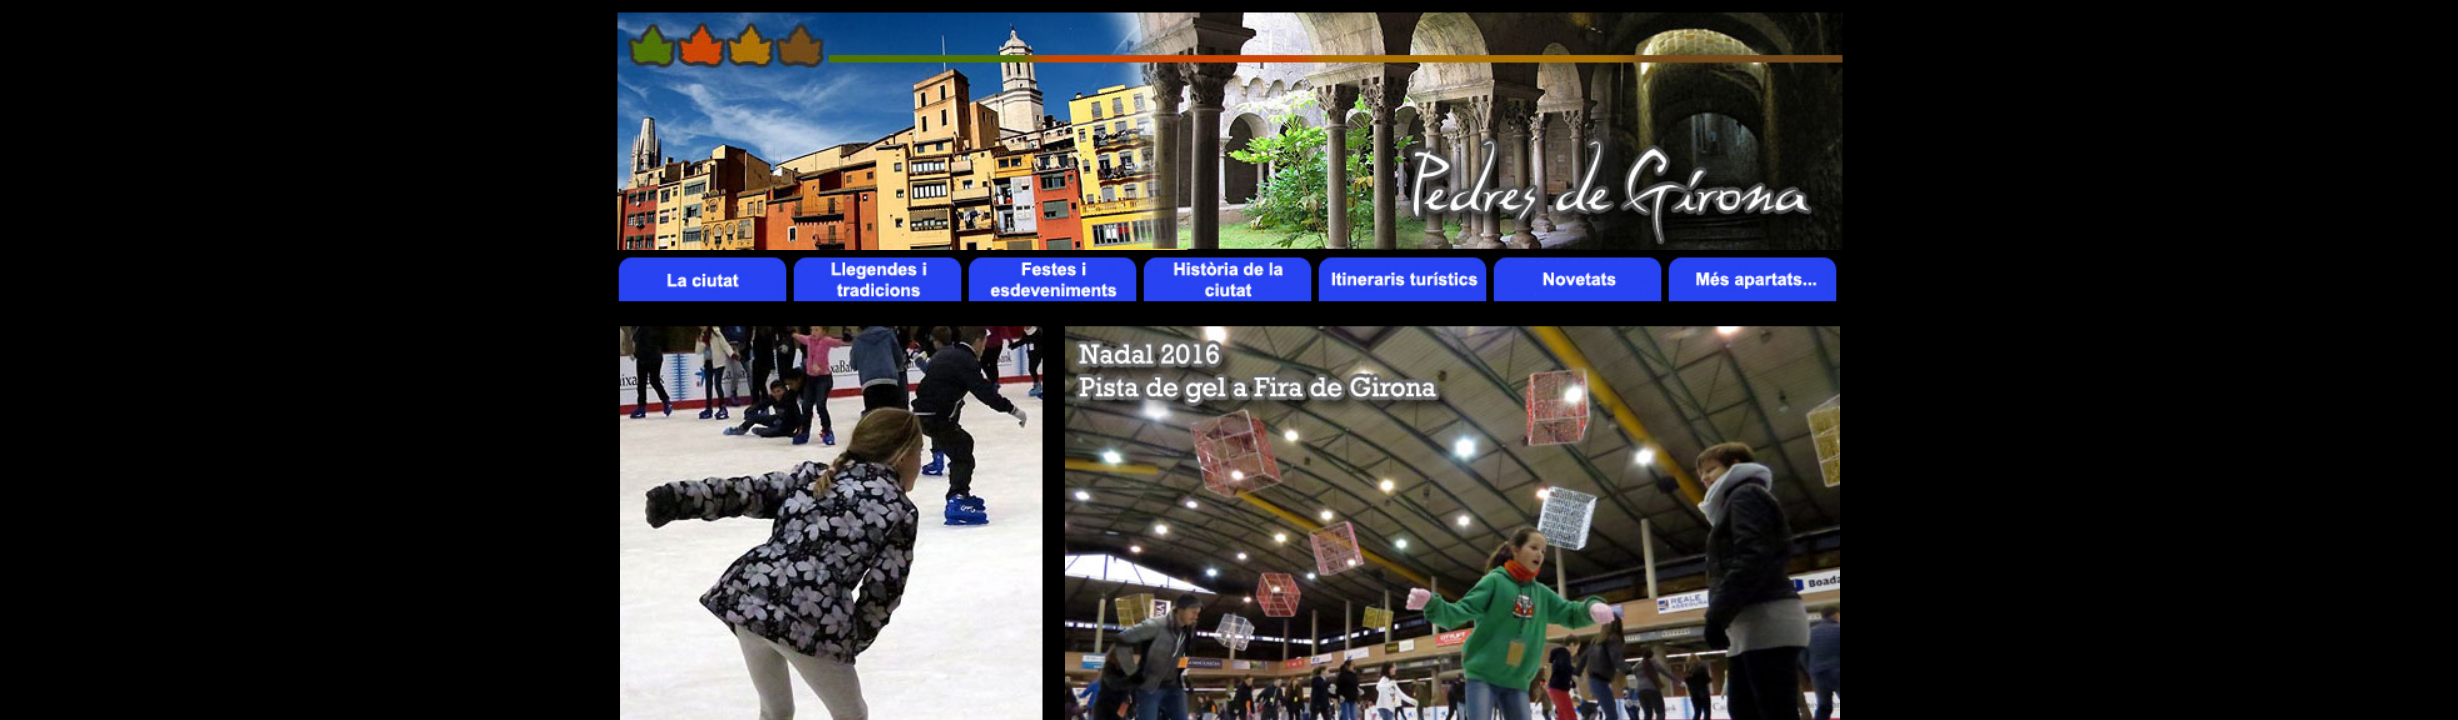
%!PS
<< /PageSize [2458 720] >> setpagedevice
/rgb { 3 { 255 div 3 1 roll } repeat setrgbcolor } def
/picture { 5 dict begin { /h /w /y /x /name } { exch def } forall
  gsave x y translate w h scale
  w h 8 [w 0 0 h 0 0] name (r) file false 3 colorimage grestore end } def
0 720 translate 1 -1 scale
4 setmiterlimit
0 0 0 rgb
0 0 2458 720 rectfill
(img/1.rgb) 617 12 1226 238 picture
(img/2.rgb) 618 252 1219 50 picture
(img/3.rgb) 620 326 423 394 picture
(img/4.rgb) 1065 326 775 394 picture
showpage
